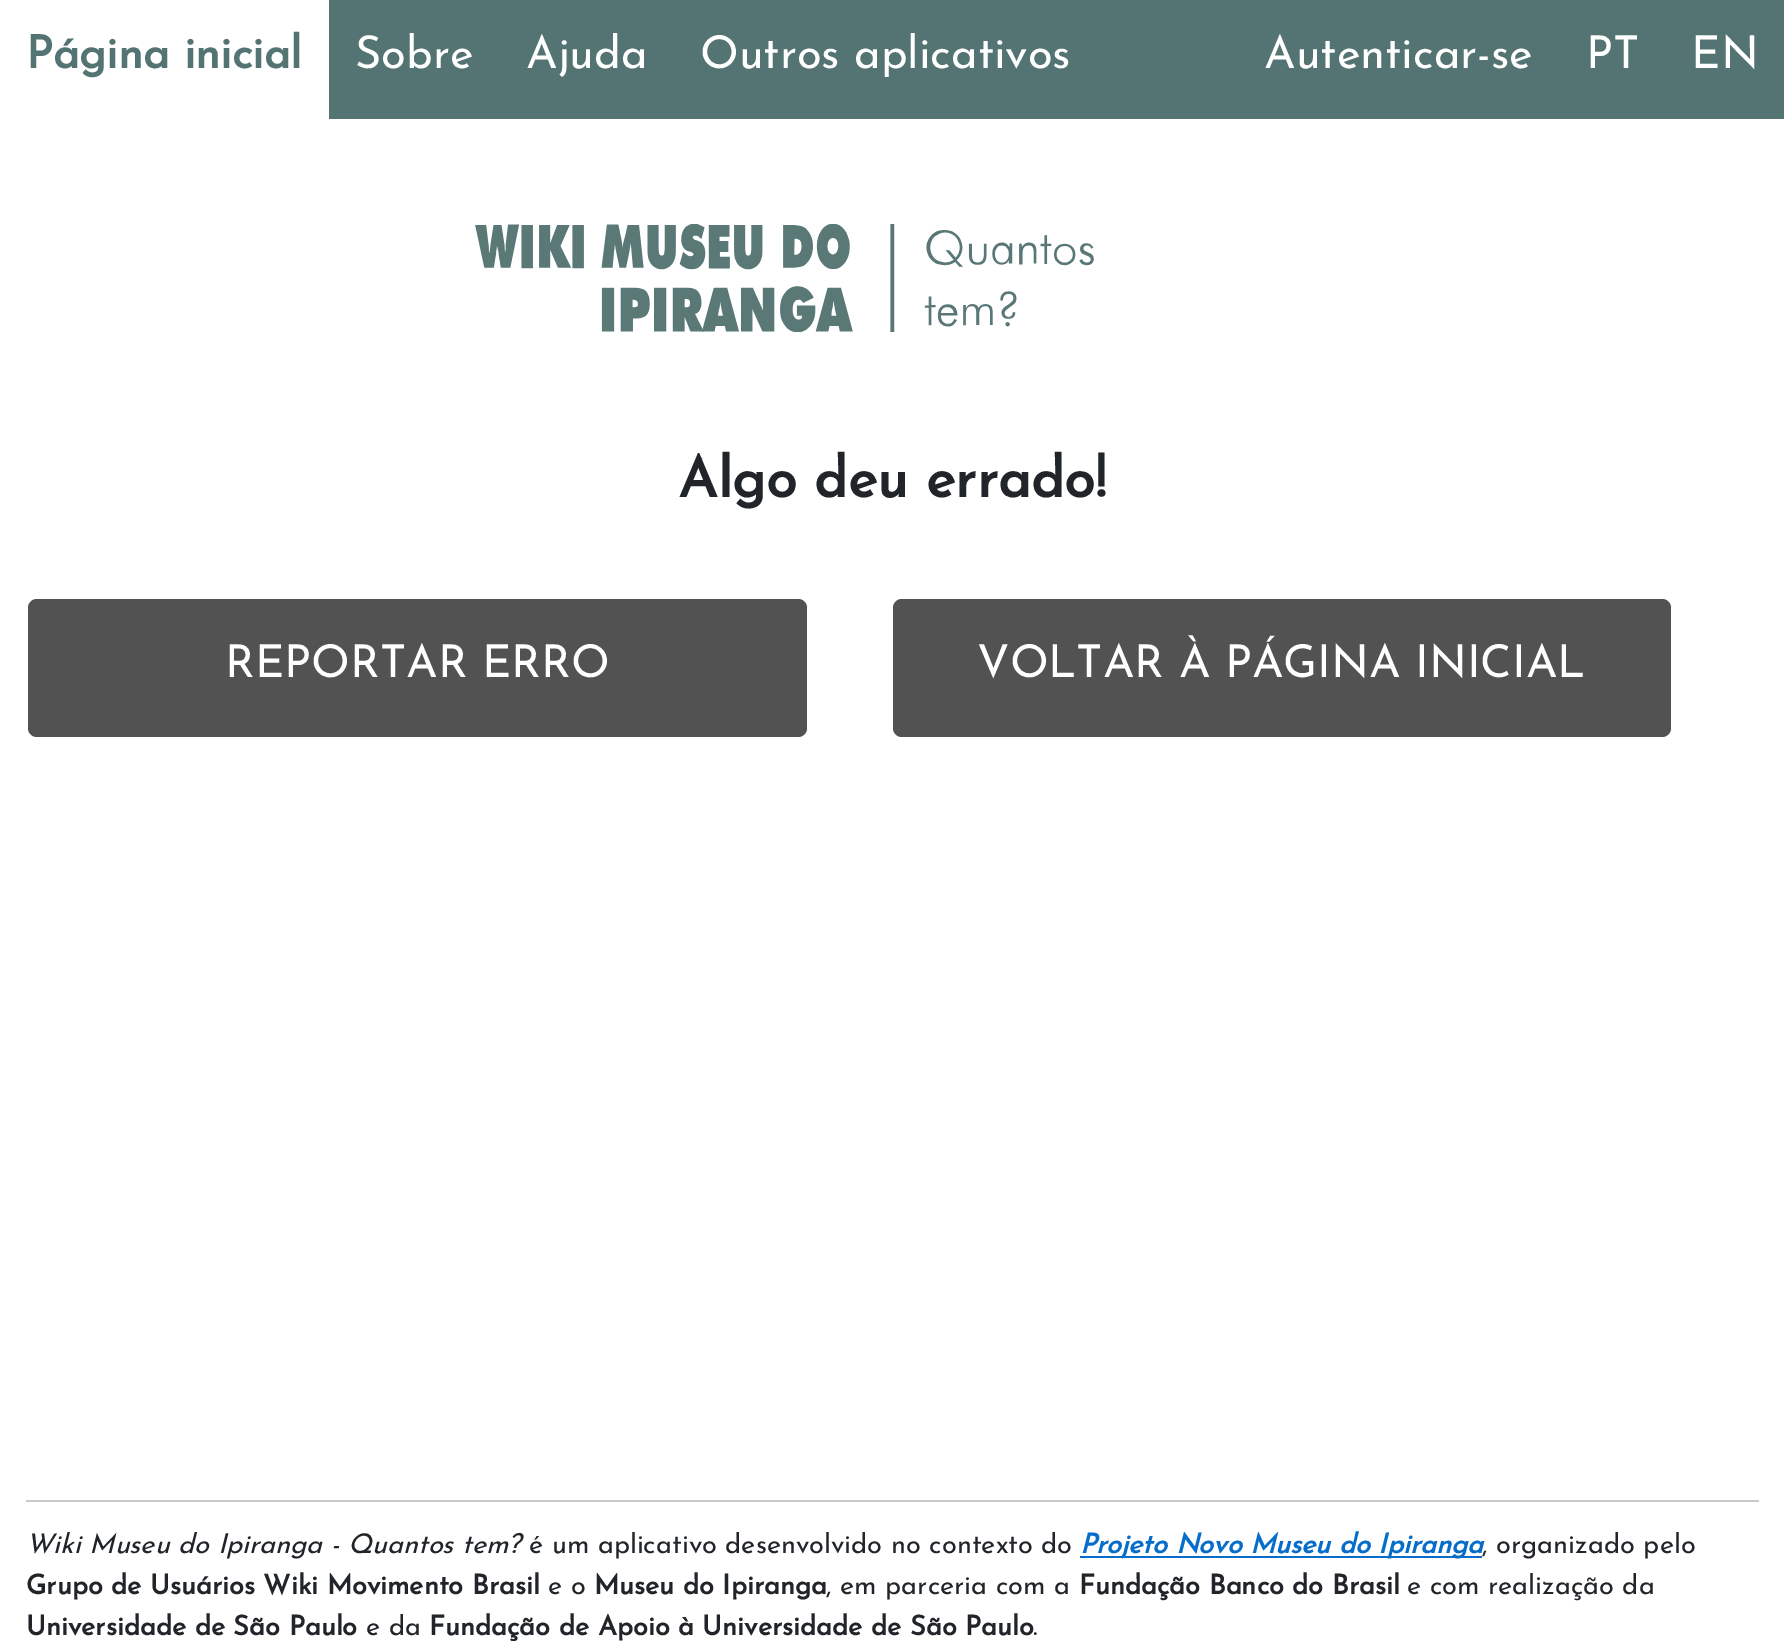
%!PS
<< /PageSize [1784 1641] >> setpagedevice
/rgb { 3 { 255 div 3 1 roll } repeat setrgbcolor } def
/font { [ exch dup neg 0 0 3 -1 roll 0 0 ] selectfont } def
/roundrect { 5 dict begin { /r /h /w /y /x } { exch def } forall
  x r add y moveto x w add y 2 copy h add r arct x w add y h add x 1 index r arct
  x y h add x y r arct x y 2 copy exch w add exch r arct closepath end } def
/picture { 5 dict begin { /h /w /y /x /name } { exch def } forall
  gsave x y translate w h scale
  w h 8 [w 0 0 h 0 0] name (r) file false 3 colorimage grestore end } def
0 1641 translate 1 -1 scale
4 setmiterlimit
255 255 255 rgb
0 0 1784 1641 rectfill
84 116 115 rgb
329 0 1455 119 rectfill
(img/1.rgb) 475 224 619 108 picture
82 82 82 rgb
28 599 779 138 9 roundrect fill
893 599 778 138 9 roundrect fill
200 201 202 rgb
26 1500 1733 2 rectfill
6 110 202 rgb
1080 1556 402 2 rectfill
/JosefinSans-Bold 45.25 font
84 116 115 rgb
26 68 moveto (Página inicial) show
/JosefinSans-Thin 45.25 font
255 255 255 rgb
[
  [(Sobre) 355 68]
  [(Ajuda) 526 68]
  [(Outros aplicativos) 700 68]
  [(Autenticar-se) 1264 68]
  [(PT) 1586 68]
  [(EN) 1691 68]
] { aload pop moveto show } forall
/JosefinSans-Bold 56.5 font
33 37 41 rgb
678 497 moveto (Algo deu errado!) show
/JosefinSans-Thin 45.25 font
255 255 255 rgb
225 677 moveto (REPORTAR ERRO) show
977 677 moveto (VOLTAR À PÁGINA INICIAL) show
/JosefinSans-ThinItalic 27.2 font
33 37 41 rgb
26 1553 moveto (Wiki Museu do Ipiranga - Quantos tem?) show
/JosefinSans-Thin 27.2 font
529 1553 moveto (é um aplicativo desenvolvido no contexto do) show
/JosefinSans-BoldItalic 27.2 font
6 110 202 rgb
1080 1553 moveto (Projeto Novo Museu do Ipiranga) show
/JosefinSans-Thin 27.2 font
33 37 41 rgb
1482 1553 moveto (, organizado pelo) show
/JosefinSans-Bold 27.2 font
26 1594 moveto (Grupo de Usuários Wiki Movimento Brasil) show
/JosefinSans-Thin 27.2 font
548 1594 moveto (e o) show
/JosefinSans-Bold 27.2 font
594 1594 moveto (Museu do Ipiranga) show
/JosefinSans-Thin 27.2 font
826 1594 moveto (, em parceria com a) show
/JosefinSans-Bold 27.2 font
1079 1594 moveto (Fundação Banco do Brasil) show
/JosefinSans-Thin 27.2 font
1407 1594 moveto (e com realização da) show
/JosefinSans-Bold 27.2 font
26 1635 moveto (Universidade de São Paulo) show
/JosefinSans-Thin 27.2 font
366 1635 moveto (e da) show
/JosefinSans-Bold 27.2 font
429 1635 moveto (Fundação de Apoio à Universidade de São Paulo) show
/JosefinSans-Thin 27.2 font
1033 1635 moveto (.) show
showpage
